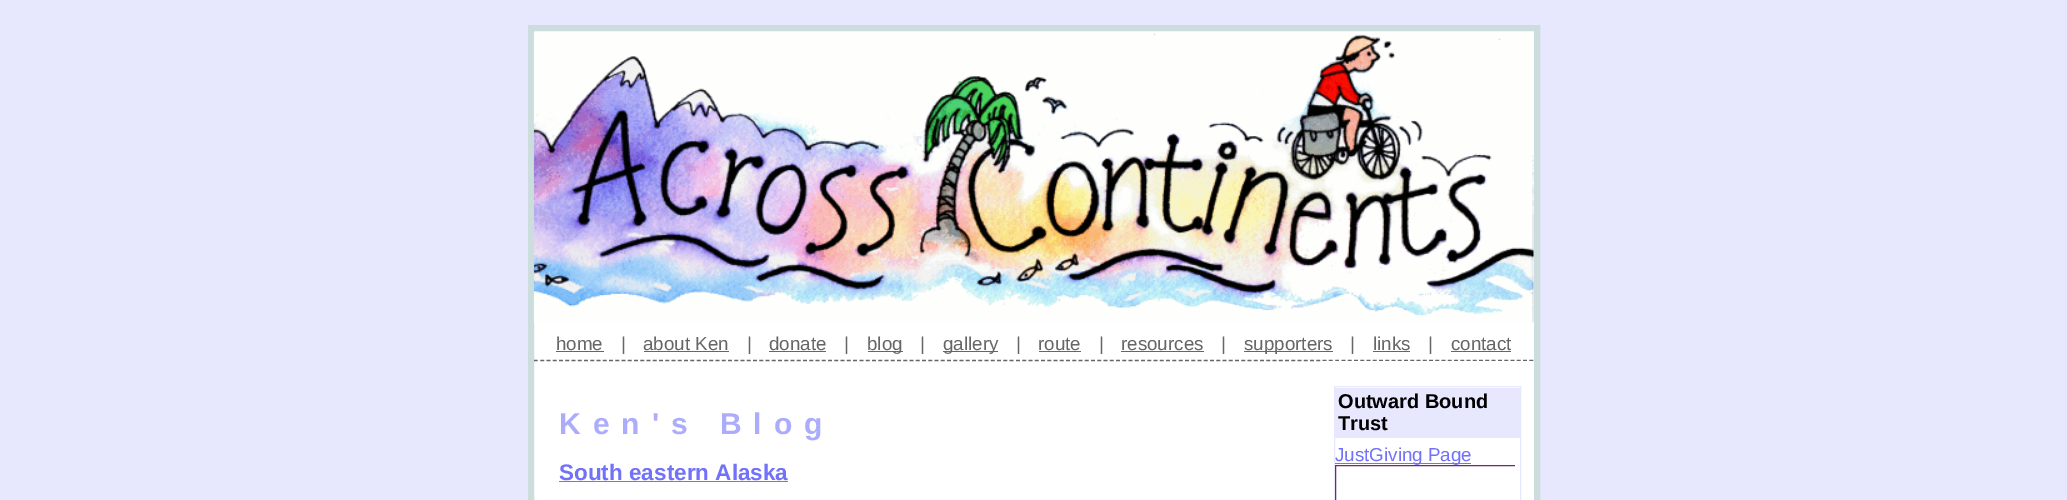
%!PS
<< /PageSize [2067 500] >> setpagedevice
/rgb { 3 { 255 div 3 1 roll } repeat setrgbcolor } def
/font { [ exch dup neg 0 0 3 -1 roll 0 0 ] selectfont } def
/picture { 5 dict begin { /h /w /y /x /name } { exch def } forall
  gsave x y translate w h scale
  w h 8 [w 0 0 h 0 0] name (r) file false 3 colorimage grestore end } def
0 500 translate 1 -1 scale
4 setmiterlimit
231 231 254 rgb
0 0 2067 500 rectfill
255 255 255 rgb
531 28 moveto 1537 28 lineto 1537 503 lineto 531 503 lineto closepath gsave fill grestore
204 221 221 rgb
6 setlinewidth
stroke
(img/1.rgb) 533 33 1001 290 picture
102 102 102 rgb
1.2 setlinewidth
[3.75 2.51] 0 setdash
534 360.5 moveto 1534 360.5 lineto stroke
[
  [556 351 48 1 102 102 102]
  [644 351 85 1 102 102 102]
  [769 351 57 1 102 102 102]
  [868 351 35 1 102 102 102]
  [943 351 55 1 102 102 102]
  [1039 351 42 1 102 102 102]
  [1121 351 83 1 102 102 102]
  [1244 351 89 1 102 102 102]
  [1373 351 37 1 102 102 102]
  [1451 351 60 1 102 102 102]
  [559 481 229 1 113 113 249]
  [1322 361 211 1 255 255 255]
] { aload pop rgb rectfill } forall
231 231 254 rgb
1 setlinewidth
[] 0 setdash
1334.5 386.5 186 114 rectstroke
1335 388 185 50 rectfill
113 113 249 rgb
1335 463 136 1 rectfill
gsave
1335 465 180 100 rectclip
120 37 109 rgb
1335.5 465.5 225 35 rectstroke
grestore
/LiberationSans-Regular 18.75 font
102 102 102 rgb
[
  [(home) 556 350]
  [(|) 621 350]
  [(about Ken) 643 350]
  [(|) 747 350]
  [(donate) 769 350]
  [(|) 844 350]
  [(blog) 867 350]
  [(|) 920 350]
  [(gallery) 943 350]
  [(|) 1016 350]
  [(route) 1038 350]
  [(|) 1099 350]
  [(resources) 1121 350]
  [(|) 1221 350]
  [(supporters) 1244 350]
  [(|) 1350 350]
  [(links) 1373 350]
  [(|) 1428 350]
  [(contact) 1451 350]
] { aload pop moveto show } forall
/LiberationSans-Bold 30 font
172 172 252 rgb
559 434 moveto 12 0 (Ken's Blog) ashow
/LiberationSans-Bold 22.5 font
113 113 249 rgb
559 480 moveto (South eastern Alaska) show
/LiberationSans-Bold 20 font
0 0 0 rgb
1338 408 moveto (Outward Bound) show
1338 430 moveto (Trust) show
/LiberationSans-Regular 18.75 font
113 113 249 rgb
1335 461 moveto (JustGiving Page) show
showpage
